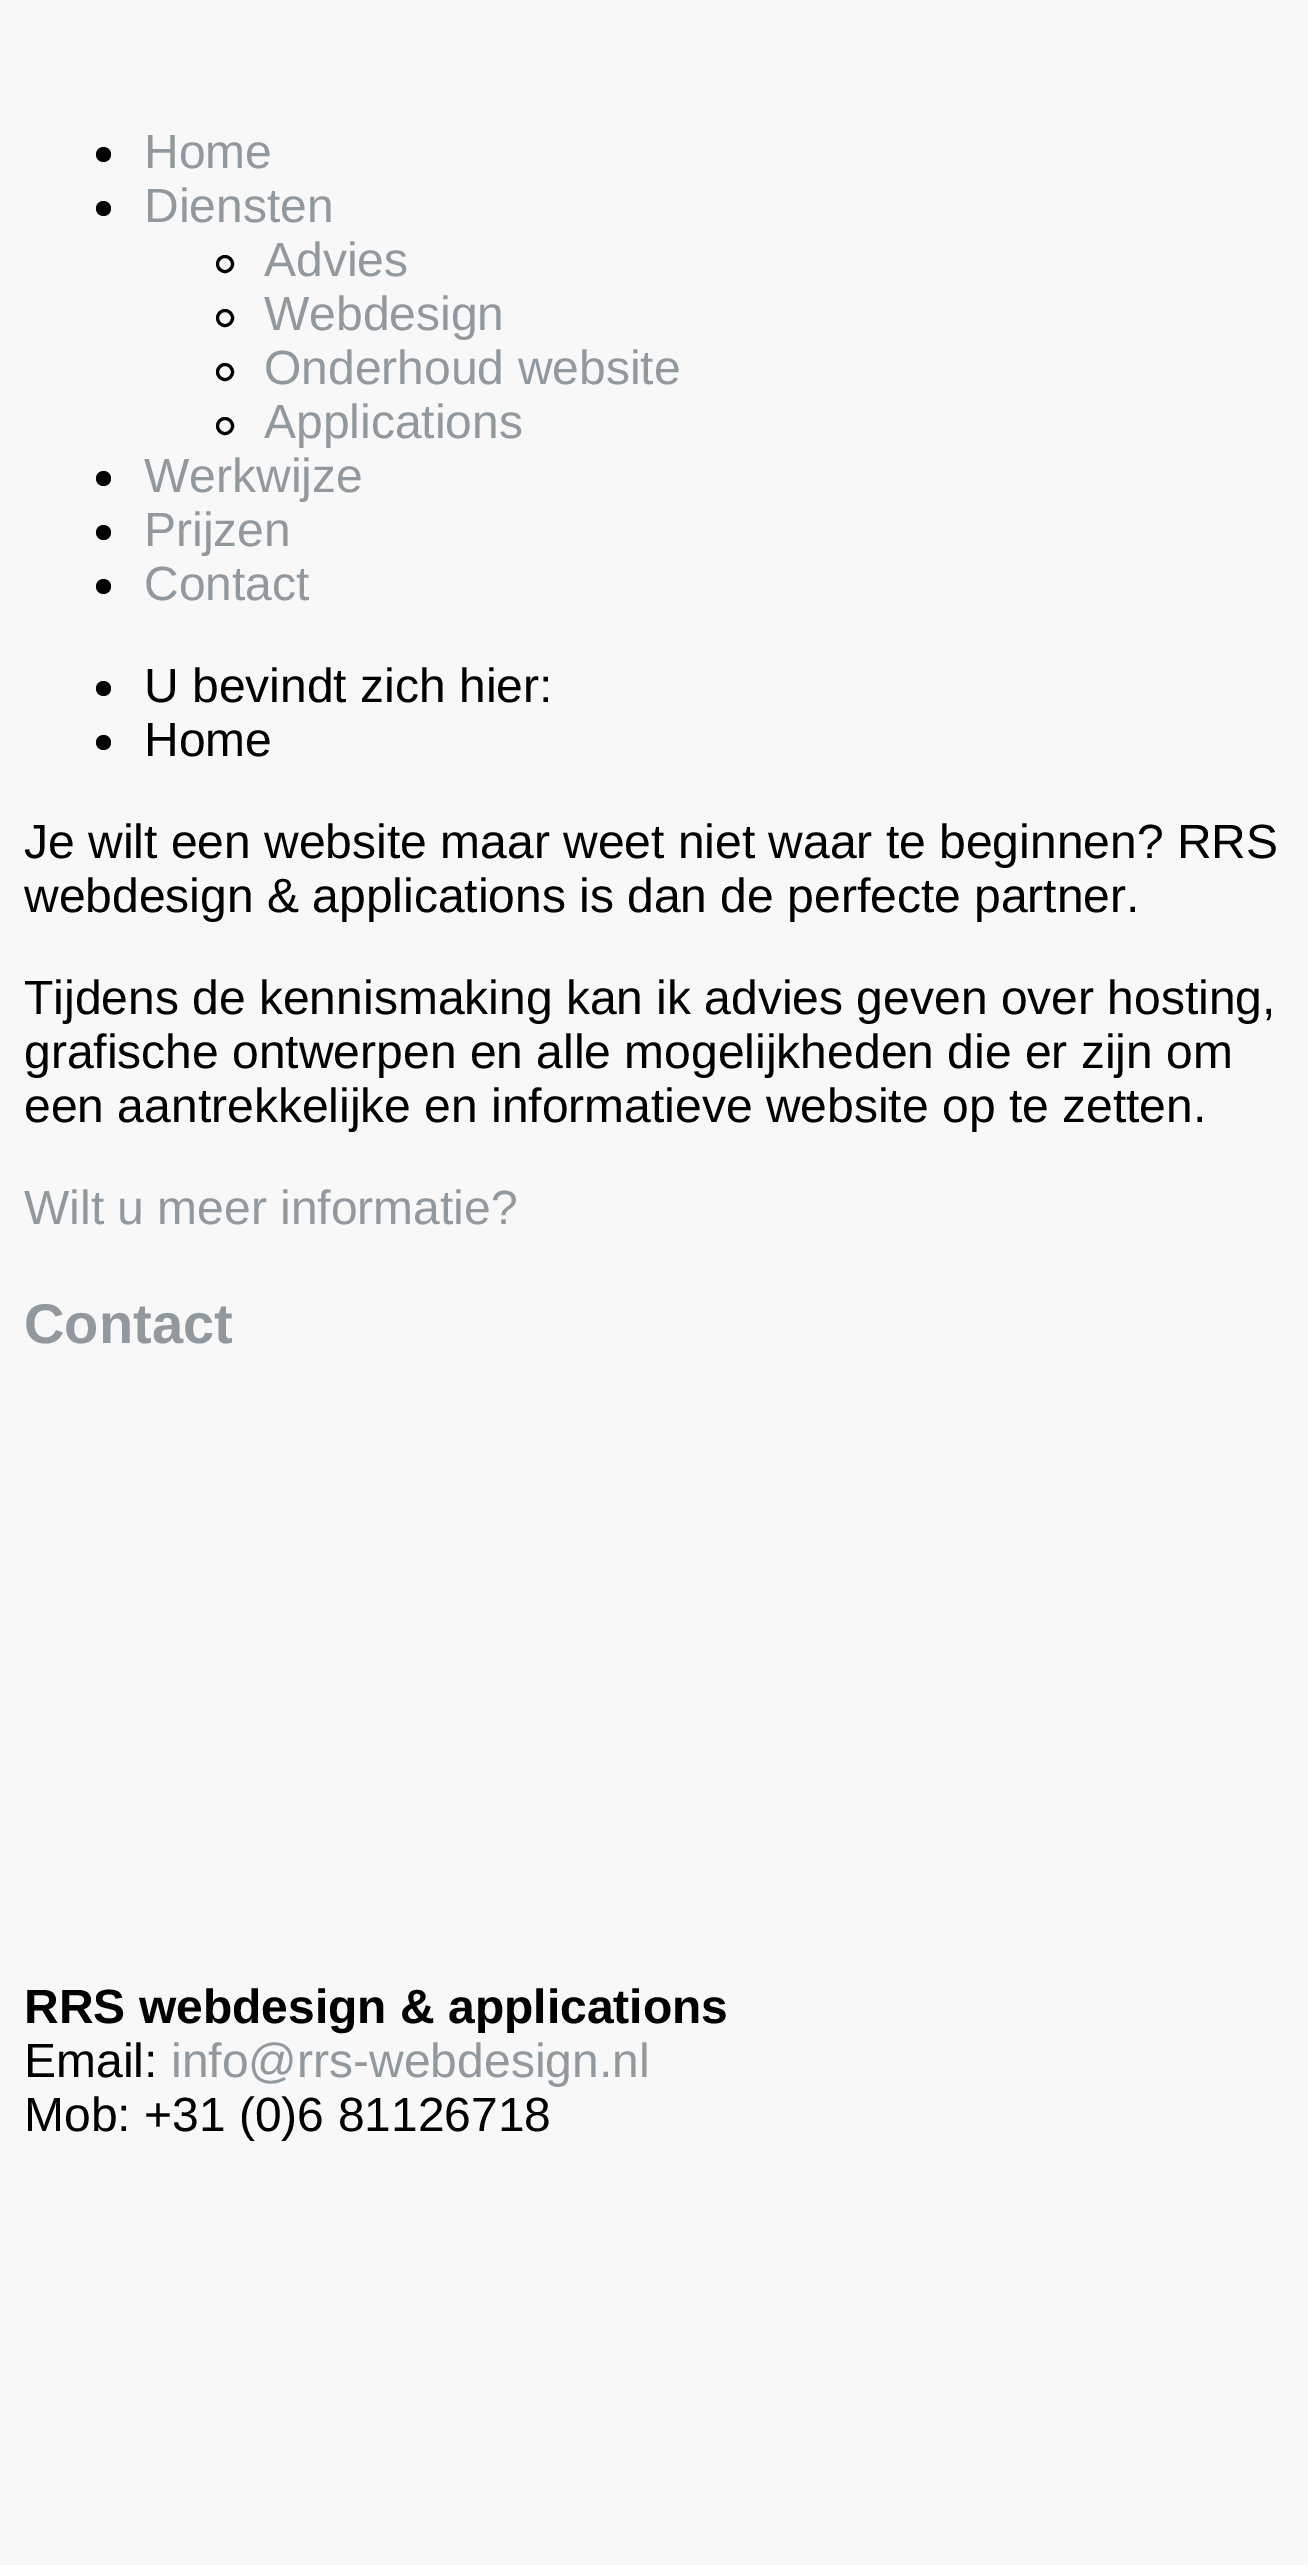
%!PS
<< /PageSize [1308 2565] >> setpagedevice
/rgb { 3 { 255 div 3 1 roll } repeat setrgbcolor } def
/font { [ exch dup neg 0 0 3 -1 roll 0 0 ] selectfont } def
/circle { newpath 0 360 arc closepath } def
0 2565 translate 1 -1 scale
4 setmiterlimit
248 248 248 rgb
0 0 1308 2565 rectfill
0 0 0 rgb
103.5 154.5 7.5 circle fill
103.5 208.5 7.5 circle fill
3 setlinewidth
225 264 7.5 circle stroke
225 318 7.5 circle stroke
225 372 7.5 circle stroke
225 426 7.5 circle stroke
103.5 478.5 7.5 circle fill
103.5 532.5 7.5 circle fill
103.5 586.5 7.5 circle fill
103.5 688.5 7.5 circle fill
103.5 742.5 7.5 circle fill
/LiberationSans-Regular 48 font
146 153 158 rgb
[
  [(Home) 144 168]
  [(Diensten) 144 222]
  [(Advies) 264 276]
  [(Webdesign) 264 330]
  [(Onderhoud website) 264 384]
  [(Applications) 264 438]
  [(Werkwijze) 144 492]
  [(Prijzen) 144 546]
  [(Contact) 144 600]
] { aload pop moveto show } forall
0 0 0 rgb
[
  [(U bevindt zich hier:) 144 702]
  [(Home) 144 756]
  [(Je wilt een website maar weet niet waar te beginnen? RRS) 24 858]
  [(webdesign & applications is dan de perfecte partner.) 24 912]
  [(Tijdens de kennismaking kan ik advies geven over hosting,) 24 1014]
  [(grafische ontwerpen en alle mogelijkheden die er zijn om) 24 1068]
  [(een aantrekkelijke en informatieve website op te zetten.) 24 1122]
] { aload pop moveto show } forall
146 153 158 rgb
24 1224 moveto (Wilt u meer informatie?) show
/LiberationSans-Bold 56 font
24 1343 moveto (Contact) show
/LiberationSans-Bold 48 font
0 0 0 rgb
24 2023 moveto (RRS webdesign & applications) show
/LiberationSans-Regular 48 font
24 2077 moveto (Email:) show
146 153 158 rgb
171 2077 moveto (info@rrs-webdesign.nl) show
0 0 0 rgb
24 2131 moveto (Mob: +31 \(0\)6 81126718) show
showpage
